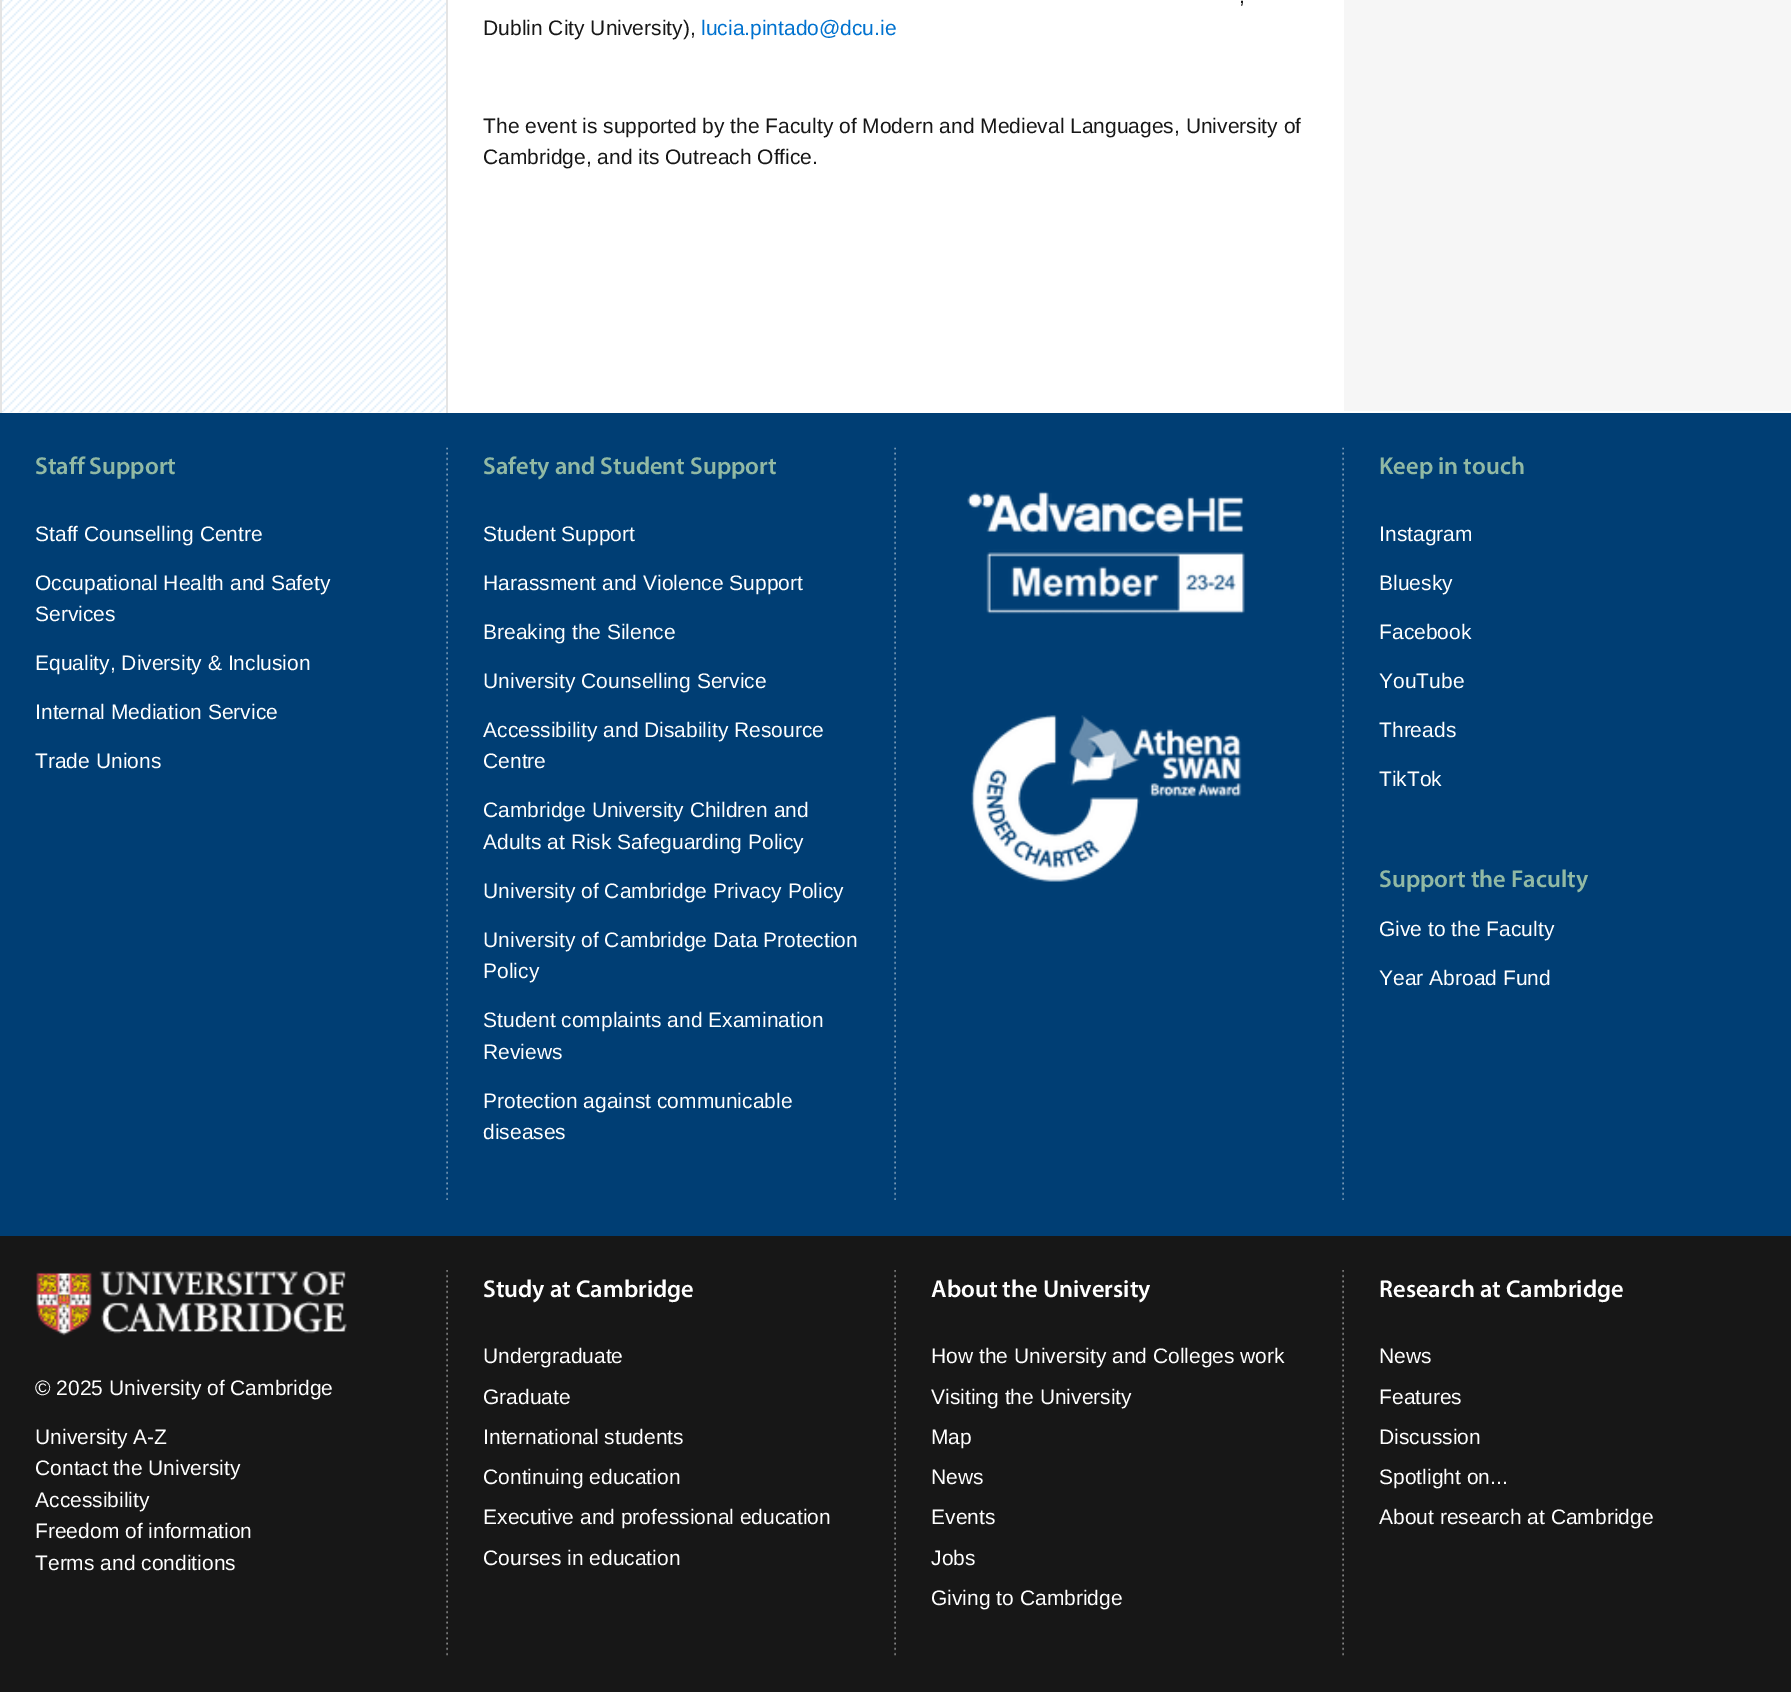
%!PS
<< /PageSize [1791 1692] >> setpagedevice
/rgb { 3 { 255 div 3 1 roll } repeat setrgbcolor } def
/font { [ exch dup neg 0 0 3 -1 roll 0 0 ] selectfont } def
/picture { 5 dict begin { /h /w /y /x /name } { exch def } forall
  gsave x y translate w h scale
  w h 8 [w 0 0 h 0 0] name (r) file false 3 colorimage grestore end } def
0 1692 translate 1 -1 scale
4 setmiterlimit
255 255 255 rgb
0 0 1791 1692 rectfill
(img/1.rgb) 2 0 444 413 picture
[
  [446 0 2 413 228 228 228]
  [0 0 2 413 228 228 228]
  [1344 0 447 411 246 246 246]
  [0 413 1791 823 0 62 116]
] { aload pop rgb rectfill } forall
(img/2.rgb) 446 447 2 753 picture
(img/2.rgb) 894 447 2 753 picture
(img/2.rgb) 1342 447 2 753 picture
(img/3.rgb) 967 491 278 123 picture
(img/4.rgb) 971 715 271 167 picture
23 23 23 rgb
0 1236 1791 456 rectfill
(img/5.rgb) 446 1270 2 386 picture
(img/6.rgb) 36 1271 311 65 picture
(img/5.rgb) 894 1270 2 386 picture
(img/5.rgb) 1342 1270 2 386 picture
/LiberationSans-Regular 21 font
1239 3 moveto (,) show
483 35 moveto (Dublin City University\),) show
0 114 207 rgb
701 35 moveto (lucia.pintado@dcu.ie) show
23 23 23 rgb
483 133 moveto (The event is supported by the Faculty of Modern and Medieval Languages, University of) show
483 164 moveto (Cambridge, and its Outreach Office.) show
/Myriad-SemiBold 24.5 font
145 185 164 rgb
35 474 moveto (Staff Support) show
/LiberationSans-Regular 21 font
255 255 255 rgb
[
  [(Staff Counselling Centre) 35 541]
  [(Occupational Health and Safety) 35 590]
  [(Services) 35 621]
  [(Equality, Diversity & Inclusion) 35 670]
  [(Internal Mediation Service) 35 719]
  [(Trade Unions) 35 768]
] { aload pop moveto show } forall
/Myriad-SemiBold 24.5 font
145 185 164 rgb
483 474 moveto (Safety and Student Support) show
/LiberationSans-Regular 21 font
255 255 255 rgb
[
  [(Student Support) 483 541]
  [(Harassment and Violence Support) 483 590]
  [(Breaking the Silence) 483 639]
  [(University Counselling Service) 483 688]
  [(Accessibility and Disability Resource) 483 737]
  [(Centre) 483 768]
  [(Cambridge University Children and) 483 817]
  [(Adults at Risk Safeguarding Policy) 483 849]
  [(University of Cambridge Privacy Policy) 483 898]
  [(University of Cambridge Data Protection) 483 947]
  [(Policy) 483 978]
  [(Student complaints and Examination) 483 1027]
  [(Reviews) 483 1059]
  [(Protection against communicable) 483 1108]
  [(diseases) 483 1139]
] { aload pop moveto show } forall
/Myriad-SemiBold 24.5 font
145 185 164 rgb
1379 474 moveto (Keep in touch) show
/LiberationSans-Regular 21 font
255 255 255 rgb
[
  [(Instagram) 1379 541]
  [(Bluesky) 1379 590]
  [(Facebook) 1379 639]
  [(YouTube) 1379 688]
  [(Threads) 1379 737]
  [(TikTok) 1379 786]
] { aload pop moveto show } forall
/Myriad-SemiBold 24.5 font
145 185 164 rgb
1379 887 moveto (Support the Faculty) show
/LiberationSans-Regular 21 font
255 255 255 rgb
[
  [(Give to the Faculty) 1379 936]
  [(Year Abroad Fund) 1379 985]
  [(© 2025 University of Cambridge) 35 1395]
  [(University A-Z) 35 1444]
  [(Contact the University) 35 1475]
  [(Accessibility) 35 1507]
  [(Freedom of information) 35 1538]
  [(Terms and conditions) 35 1570]
] { aload pop moveto show } forall
/Myriad-SemiBold 24.5 font
483 1297 moveto (Study at Cambridge) show
/LiberationSans-Regular 21 font
[
  [(Undergraduate) 483 1363]
  [(Graduate) 483 1404]
  [(International students) 483 1444]
  [(Continuing education) 483 1484]
  [(Executive and professional education) 483 1524]
  [(Courses in education) 483 1565]
] { aload pop moveto show } forall
/Myriad-SemiBold 24.5 font
931 1297 moveto (About the University) show
/LiberationSans-Regular 21 font
[
  [(How the University and Colleges work) 931 1363]
  [(Visiting the University) 931 1404]
  [(Map) 931 1444]
  [(News) 931 1484]
  [(Events) 931 1524]
  [(Jobs) 931 1565]
  [(Giving to Cambridge) 931 1605]
] { aload pop moveto show } forall
/Myriad-SemiBold 24.5 font
1379 1297 moveto (Research at Cambridge) show
/LiberationSans-Regular 21 font
[
  [(News) 1379 1363]
  [(Features) 1379 1404]
  [(Discussion) 1379 1444]
  [(Spotlight on...) 1379 1484]
  [(About research at Cambridge) 1379 1524]
] { aload pop moveto show } forall
showpage
